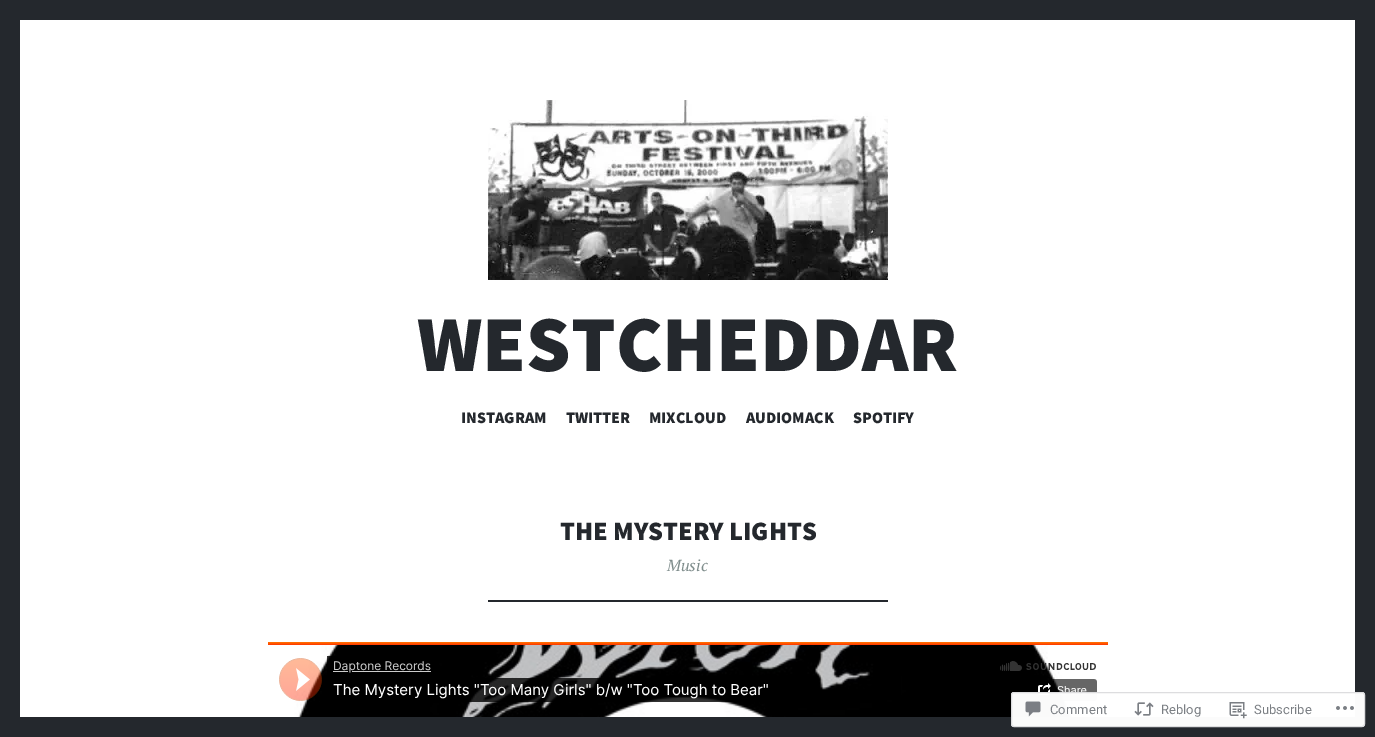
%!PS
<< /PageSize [1375 737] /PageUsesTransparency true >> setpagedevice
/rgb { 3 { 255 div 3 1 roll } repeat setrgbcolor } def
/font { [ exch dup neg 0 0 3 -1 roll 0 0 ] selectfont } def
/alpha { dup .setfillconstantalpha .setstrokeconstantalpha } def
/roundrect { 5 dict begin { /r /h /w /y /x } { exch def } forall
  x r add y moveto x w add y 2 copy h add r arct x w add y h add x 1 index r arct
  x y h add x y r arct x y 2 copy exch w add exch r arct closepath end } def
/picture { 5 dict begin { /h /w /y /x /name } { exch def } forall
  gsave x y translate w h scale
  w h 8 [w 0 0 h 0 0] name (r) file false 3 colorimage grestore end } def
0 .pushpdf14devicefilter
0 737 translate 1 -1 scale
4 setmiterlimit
36 40 45 rgb
0 0 1375 737 rectfill
255 255 255 rgb
20 20 1335 697 rectfill
(img/1.rgb) 488 100 400 180 picture
36 40 45 rgb
488 600 400 2 rectfill
(img/2.rgb) 268 642 840 75 picture
0.98 alpha
255 255 255 rgb
1011 692 354 35 3 roundrect fill
220 220 222 rgb
1011.5 692.5 353 34 2.5 roundrect stroke
1 alpha
(img/3.rgb) 1025 701 16 16 picture
(img/4.rgb) 1134 702 20 14 picture
(img/5.rgb) 1229 702 18 17 picture
(img/6.rgb) 1336 706 18 4 picture
/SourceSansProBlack-Black 79.25 font
36 40 45 rgb
417 371 moveto (WESTCHEDDAR) show
/SourceSansProBlack-Black 16 font
[
  [(INSTAGRAM) 461 423]
  [(TWITTER) 566 423]
  [(MIXCLOUD) 649 423]
  [(AUDIOMACK) 746 423]
  [(SPOTIFY) 853 423]
] { aload pop moveto show } forall
/SourceSansProBlack-Black 26.5 font
560 540 moveto (THE MYSTERY LIGHTS) show
/PTSerif-Italic 16 font
127 141 140 rgb
667 571 moveto (Music) show
/Roboto-Regular 13 font
123 127 132 rgb
[
  [(Comment) 1050 714]
  [(Reblog) 1161 714]
  [(Subscribe) 1254 714]
] { aload pop moveto show } forall
.poppdf14devicefilter showpage
